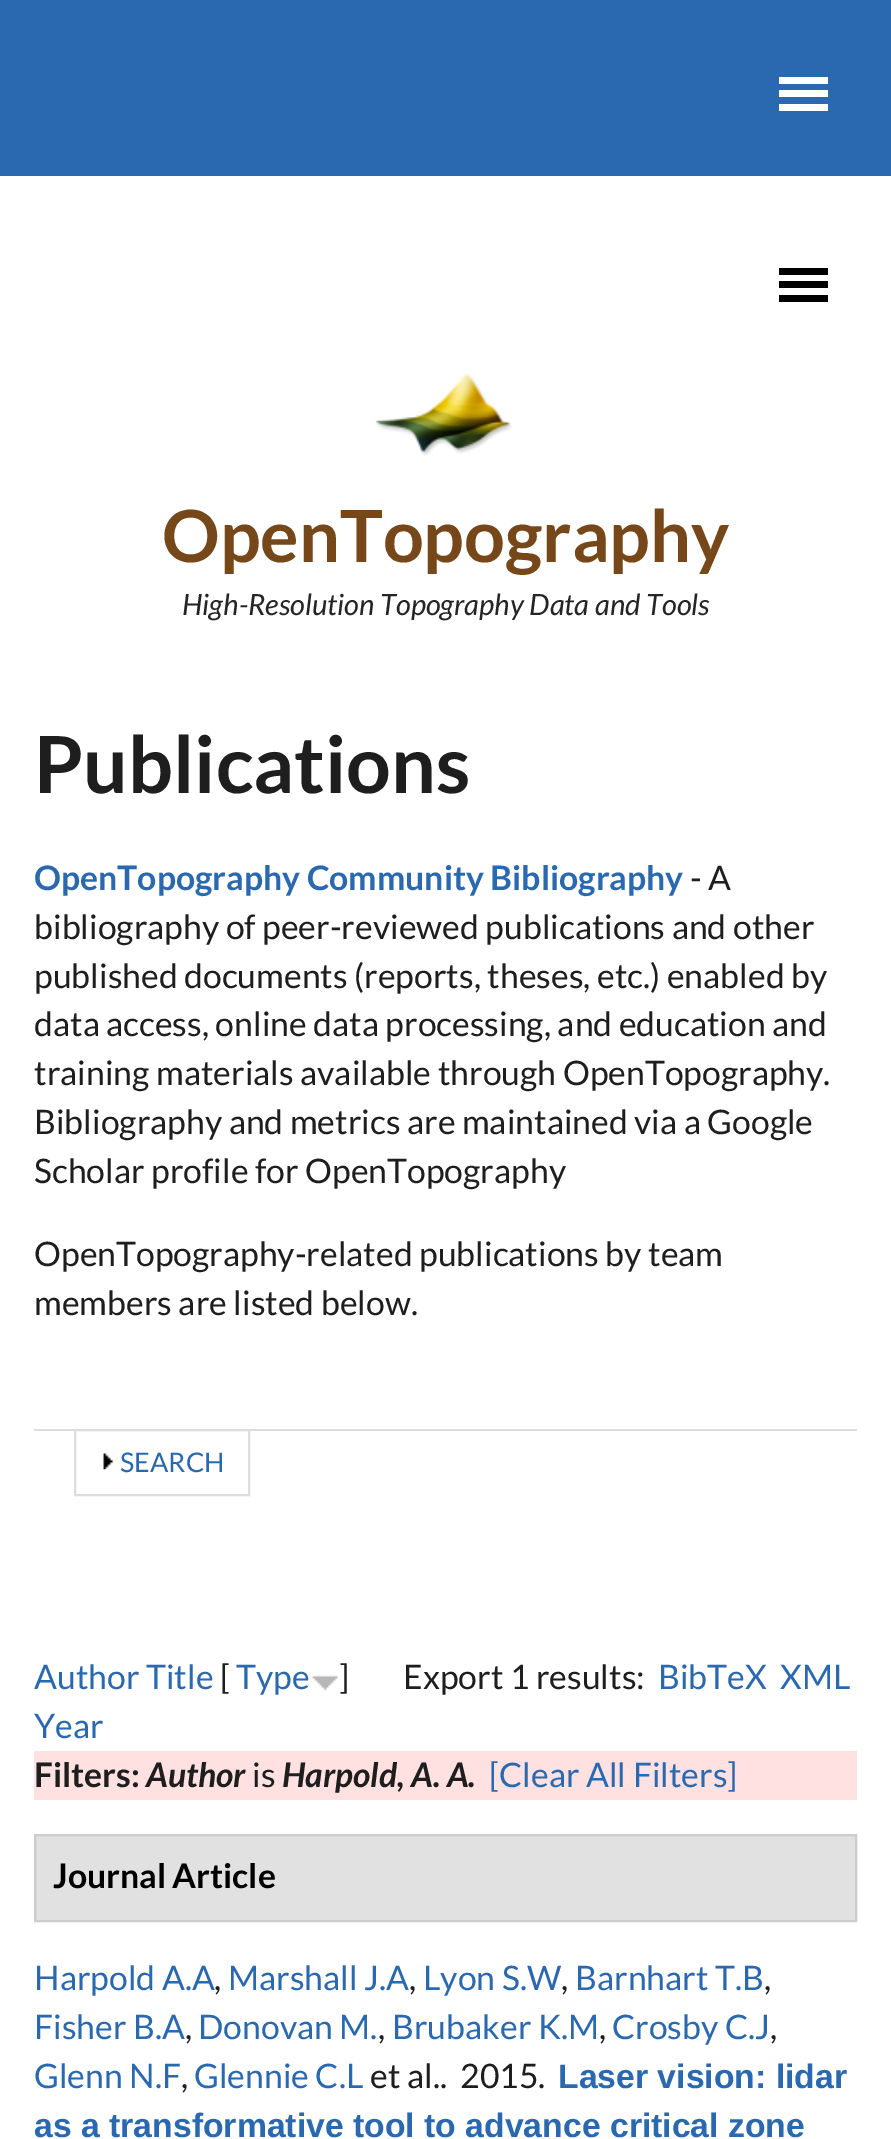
%!PS
<< /PageSize [891 2139] >> setpagedevice
/rgb { 3 { 255 div 3 1 roll } repeat setrgbcolor } def
/font { [ exch dup neg 0 0 3 -1 roll 0 0 ] selectfont } def
/picture { 5 dict begin { /h /w /y /x /name } { exch def } forall
  gsave x y translate w h scale
  w h 8 [w 0 0 h 0 0] name (r) file false 3 colorimage grestore end } def
0 2139 translate 1 -1 scale
4 setmiterlimit
255 255 255 rgb
0 0 891 2139 rectfill
[
  [0 0 891 176 42 104 175]
  [779 77 49 7 255 255 255]
  [779 90 49 7 255 255 255]
  [779 104 49 7 255 255 255]
  [779 268 49 7 0 0 0]
  [779 281 49 7 0 0 0]
  [779 295 49 7 0 0 0]
] { aload pop rgb rectfill } forall
(img/1.rgb) 375 373 137 83 picture
221 221 221 rgb
34 1429 823 2 rectfill
2 setlinewidth
75 1430 174 65 rectstroke
(img/2.rgb) 103 1453 11 17 picture
(img/3.rgb) 312 1675 26 16 picture
255 225 225 rgb
34 1751 823 49 rectfill
225 225 225 rgb
35 1835 moveto 856 1835 lineto 856 1921 lineto 35 1921 lineto closepath gsave fill grestore
204 204 204 rgb
stroke
/Lato-Bold 72 font
117 71 25 rgb
162 562 moveto (OpenTopography) show
/Lato-Italic 29.25 font
37 37 37 rgb
182 615 moveto (High-Resolution Topography Data and Tools) show
/Lato-Bold 78.75 font
30 30 30 rgb
34 793 moveto (Publications) show
/Lato-Bold 33.75 font
42 104 175 rgb
34 890 moveto (OpenTopography Community Bibliography) show
/Lato-Regular 33.75 font
30 30 30 rgb
[
  [(- A) 690 890]
  [(bibliography of peer-reviewed publications and other) 34 939]
  [(published documents \(reports, theses, etc.\) enabled by) 34 988]
  [(data access, online data processing, and education and) 34 1036]
  [(training materials available through OpenTopography.) 34 1085]
  [(Bibliography and metrics are maintained via a Google) 34 1134]
  [(Scholar profile for OpenTopography) 34 1183]
  [(OpenTopography-related publications by team) 34 1266]
  [(members are listed below.) 34 1315]
] { aload pop moveto show } forall
/Lato-Regular 27 font
42 104 175 rgb
120 1472 moveto (SEARCH) show
/Lato-Regular 33.75 font
34 1689 moveto (Author Title) show
30 30 30 rgb
220 1689 moveto ([) show
42 104 175 rgb
236 1689 moveto (Type) show
30 30 30 rgb
339 1689 moveto (]) show
403 1689 moveto (Export 1 results:) show
42 104 175 rgb
[
  [(BibTeX) 658 1689]
  [(XML) 780 1689]
  [(Year) 34 1738]
] { aload pop moveto show } forall
/Lato-Bold 33.75 font
30 30 30 rgb
34 1787 moveto (Filters:) show
/Lato-BoldItalic 33.75 font
146 1787 moveto (Author) show
/Lato-Regular 33.75 font
252 1787 moveto (is) show
/Lato-BoldItalic 33.75 font
282 1787 moveto (Harpold, A. A.) show
/Lato-Regular 33.75 font
42 104 175 rgb
489 1787 moveto ([Clear All Filters]) show
/Lato-Bold 33.75 font
0 0 0 rgb
53 1888 moveto (Journal Article) show
/Lato-Regular 33.75 font
42 104 175 rgb
34 1990 moveto (Harpold A.A) show
30 30 30 rgb
214 1990 moveto (,) show
42 104 175 rgb
228 1990 moveto (Marshall J.A) show
30 30 30 rgb
409 1990 moveto (,) show
42 104 175 rgb
423 1990 moveto (Lyon S.W) show
30 30 30 rgb
561 1990 moveto (,) show
42 104 175 rgb
575 1990 moveto (Barnhart T.B) show
30 30 30 rgb
764 1990 moveto (,) show
42 104 175 rgb
34 2039 moveto (Fisher B.A) show
30 30 30 rgb
185 2039 moveto (,) show
42 104 175 rgb
198 2039 moveto (Donovan M.) show
30 30 30 rgb
378 2039 moveto (,) show
42 104 175 rgb
392 2039 moveto (Brubaker K.M) show
30 30 30 rgb
599 2039 moveto (,) show
42 104 175 rgb
612 2039 moveto (Crosby C.J) show
30 30 30 rgb
770 2039 moveto (,) show
42 104 175 rgb
34 2088 moveto (Glenn N.F) show
30 30 30 rgb
181 2088 moveto (,) show
42 104 175 rgb
194 2088 moveto (Glennie C.L) show
30 30 30 rgb
370 2088 moveto (et al..) show
460 2088 moveto (2015.) show
/LiberationSans-Bold 33.75 font
42 104 175 rgb
558 2088 moveto (Laser vision: lidar) show
34 2137 moveto (as a transformative tool to advance critical zone) show
showpage
